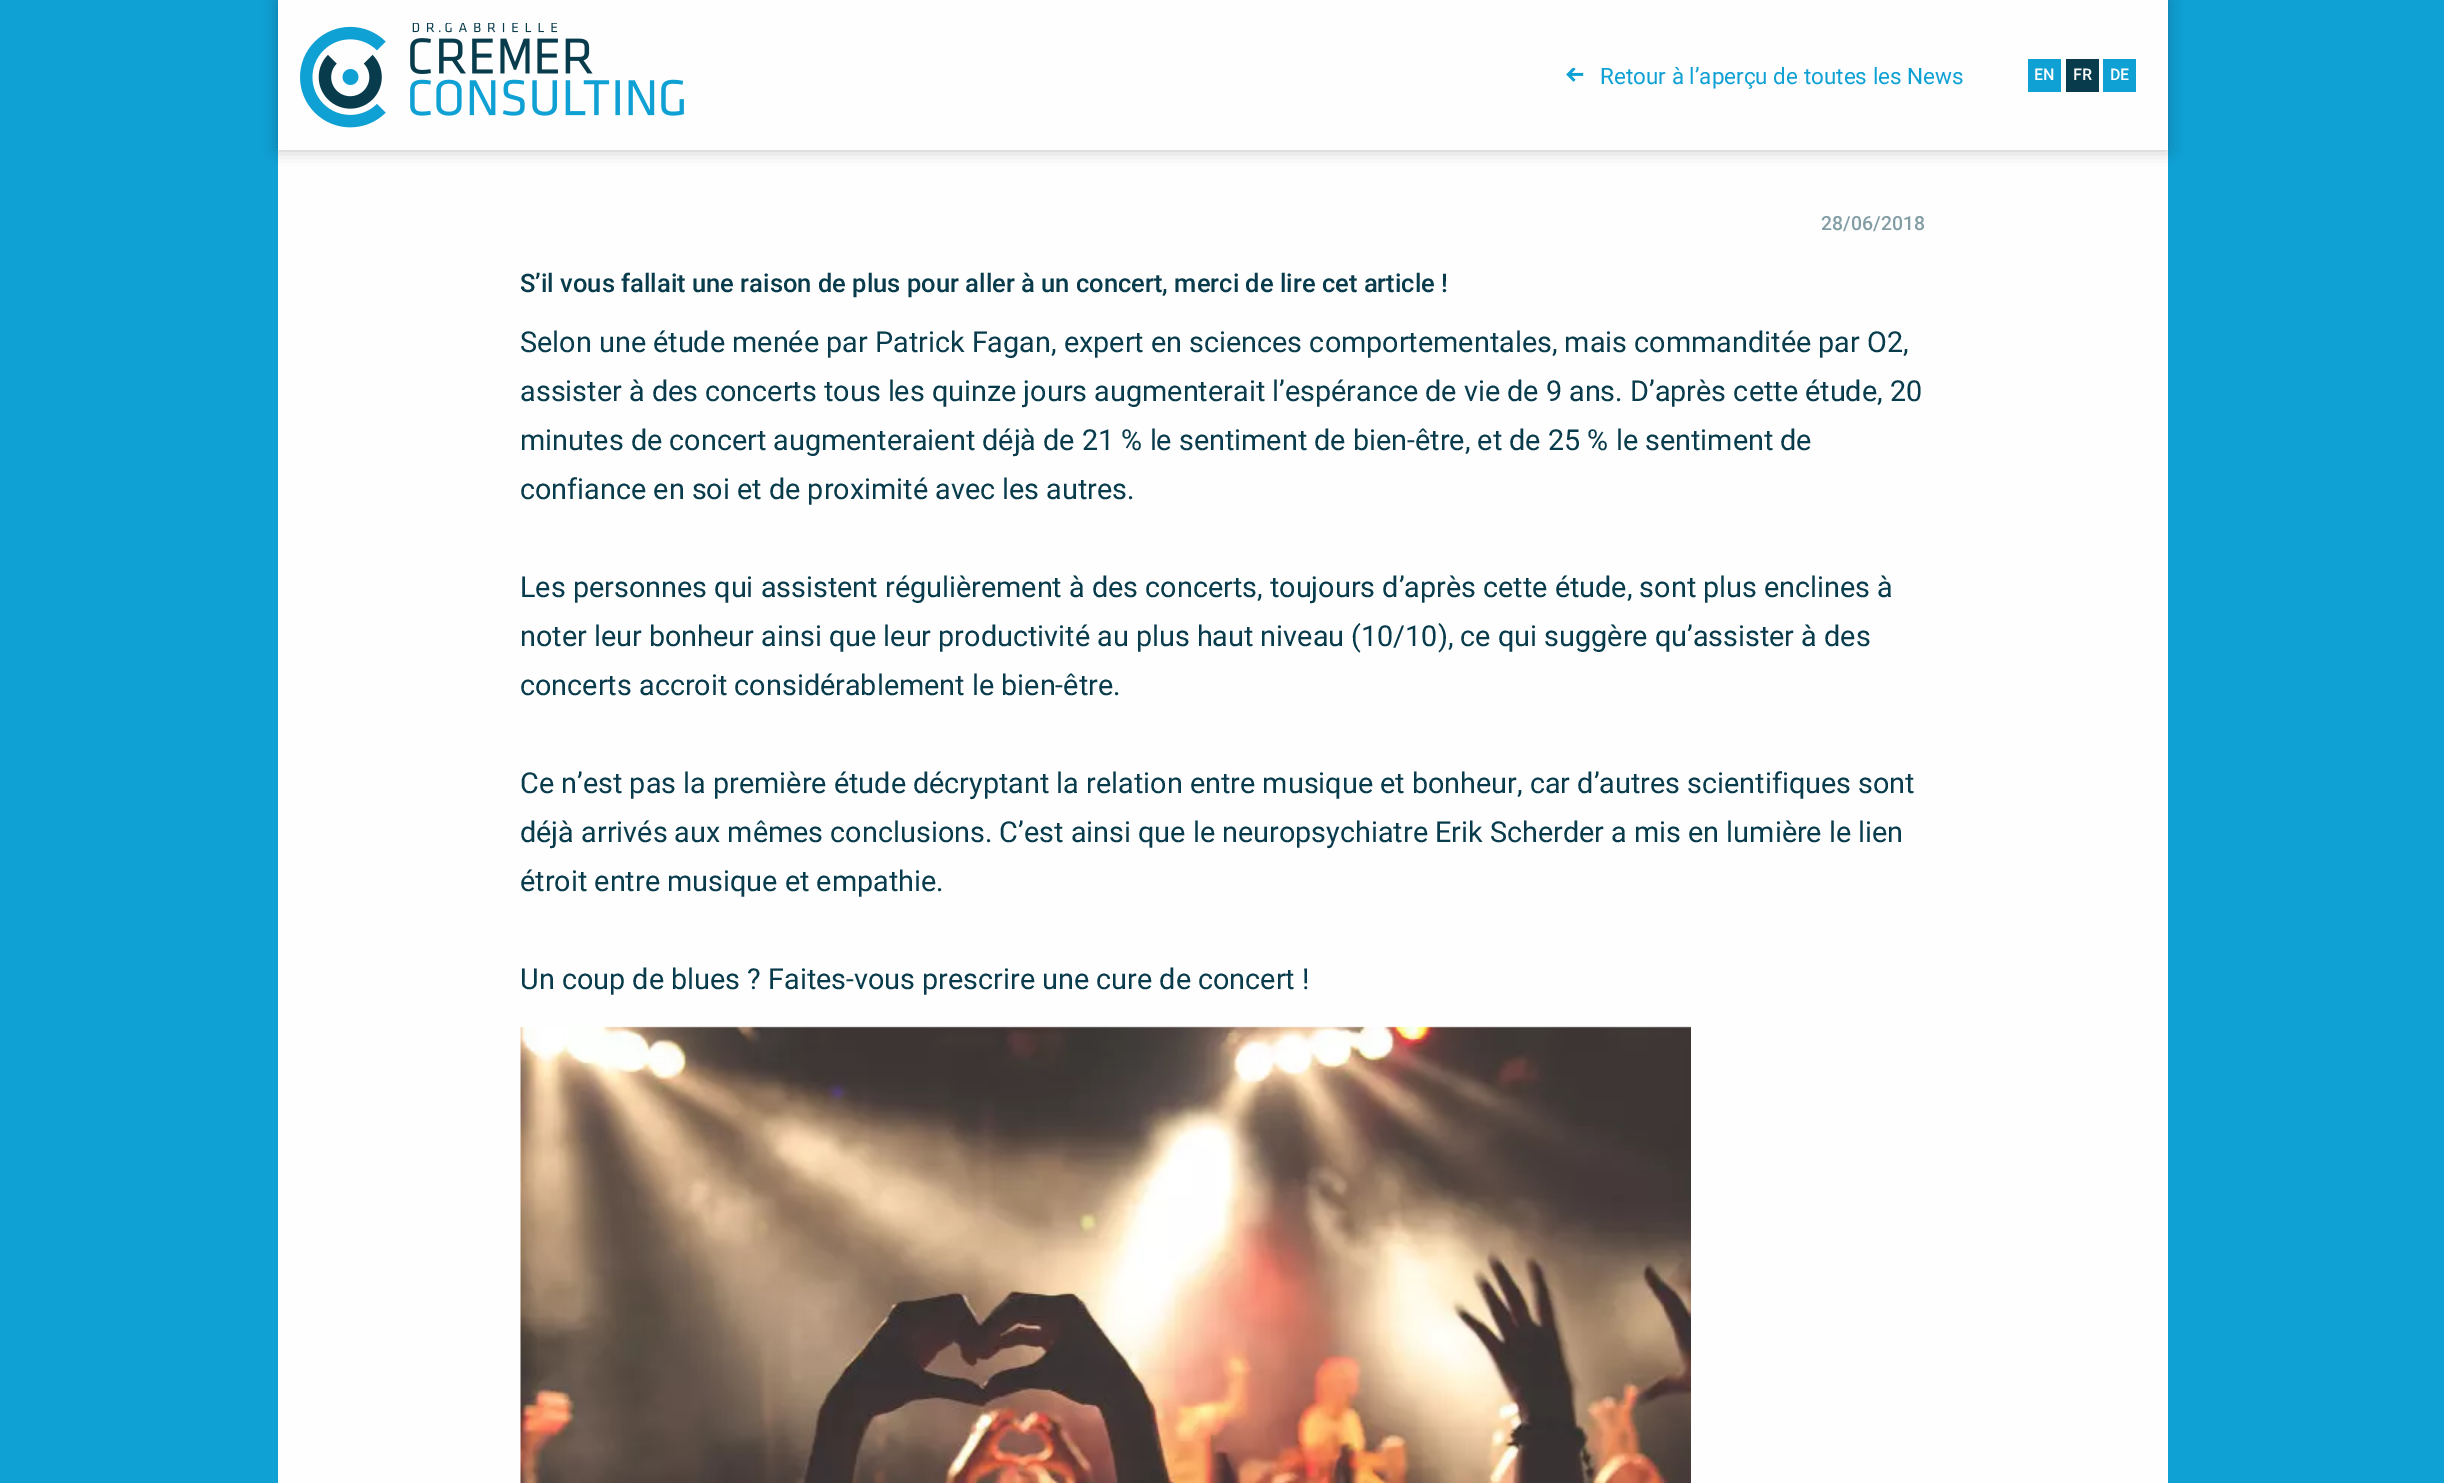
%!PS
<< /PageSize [2444 1483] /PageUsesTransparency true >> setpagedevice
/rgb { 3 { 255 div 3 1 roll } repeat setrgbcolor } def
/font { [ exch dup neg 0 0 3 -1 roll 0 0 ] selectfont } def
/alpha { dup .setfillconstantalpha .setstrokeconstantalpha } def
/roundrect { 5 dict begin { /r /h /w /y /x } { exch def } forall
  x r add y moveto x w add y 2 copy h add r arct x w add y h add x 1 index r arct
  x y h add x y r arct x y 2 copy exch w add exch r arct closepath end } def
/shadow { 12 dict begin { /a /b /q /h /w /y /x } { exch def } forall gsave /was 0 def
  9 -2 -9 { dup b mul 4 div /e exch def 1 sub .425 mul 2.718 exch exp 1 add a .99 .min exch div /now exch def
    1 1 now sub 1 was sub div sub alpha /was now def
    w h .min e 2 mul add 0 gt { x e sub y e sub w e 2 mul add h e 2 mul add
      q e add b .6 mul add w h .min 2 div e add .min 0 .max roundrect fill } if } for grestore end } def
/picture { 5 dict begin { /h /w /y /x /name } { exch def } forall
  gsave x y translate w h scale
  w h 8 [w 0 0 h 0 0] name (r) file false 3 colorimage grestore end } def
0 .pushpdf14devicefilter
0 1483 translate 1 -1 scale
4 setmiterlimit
15 160 212 rgb
0 0 2444 1483 rectfill
254 254 254 rgb
278 150 1890 1333 rectfill
10 10 10 rgb
278 0 1890 150 0 7.5 0.25 shadow
254 254 254 rgb
278 0 1890 150 rectfill
(img/1.rgb) 300 23 384 105 picture
(img/2.rgb) 1566 68 18 14 picture
[
  [2028 59 33 33 15 160 212]
  [2066 59 33 33 8 59 75]
  [2103 59 33 33 15 160 212]
] { aload pop rgb rectfill } forall
(img/3.rgb) 520 1026 1171 457 picture
/Roboto-Regular 22.5 font
1600 84 moveto (Retour à l’aperçu de toutes les News) show
/Roboto-Medium 16 font
254 254 254 rgb
[
  [(EN) 2034 80]
  [(FR) 2073 80]
  [(DE) 2110 80]
] { aload pop moveto show } forall
/Roboto-Medium 19.5 font
131 157 165 rgb
1821 230 moveto (28/06/2018) show
/Roboto-Medium 25.5 font
8 59 75 rgb
520 292 moveto (S’il vous fallait une raison de plus pour aller à un concert, merci de lire cet article !) show
/Roboto-Regular 28.8 font
[
  [(Selon une étude menée par Patrick Fagan, expert en sciences comportementales, mais commanditée par O2,) 520 352]
  [(assister à des concerts tous les quinze jours augmenterait l’espérance de vie de 9 ans. D’après cette étude, 20) 520 401]
  [(minutes de concert augmenteraient déjà de 21 % le sentiment de bien-être, et de 25 % le sentiment de) 520 450]
  [(confiance en soi et de proximité avec les autres.) 520 499]
  [(Les personnes qui assistent régulièrement à des concerts, toujours d’après cette étude, sont plus enclines à) 520 597]
  [(noter leur bonheur ainsi que leur productivité au plus haut niveau \(10/10\), ce qui suggère qu’assister à des) 520 646]
  [(concerts accroit considérablement le bien-être.) 520 695]
  [(Ce n’est pas la première étude décryptant la relation entre musique et bonheur, car d’autres scientifiques sont) 520 793]
  [(déjà arrivés aux mêmes conclusions. C’est ainsi que le neuropsychiatre Erik Scherder a mis en lumière le lien) 520 842]
  [(étroit entre musique et empathie.) 520 891]
  [(Un coup de blues ? Faites-vous prescrire une cure de concert !) 520 989]
] { aload pop moveto show } forall
.poppdf14devicefilter showpage
